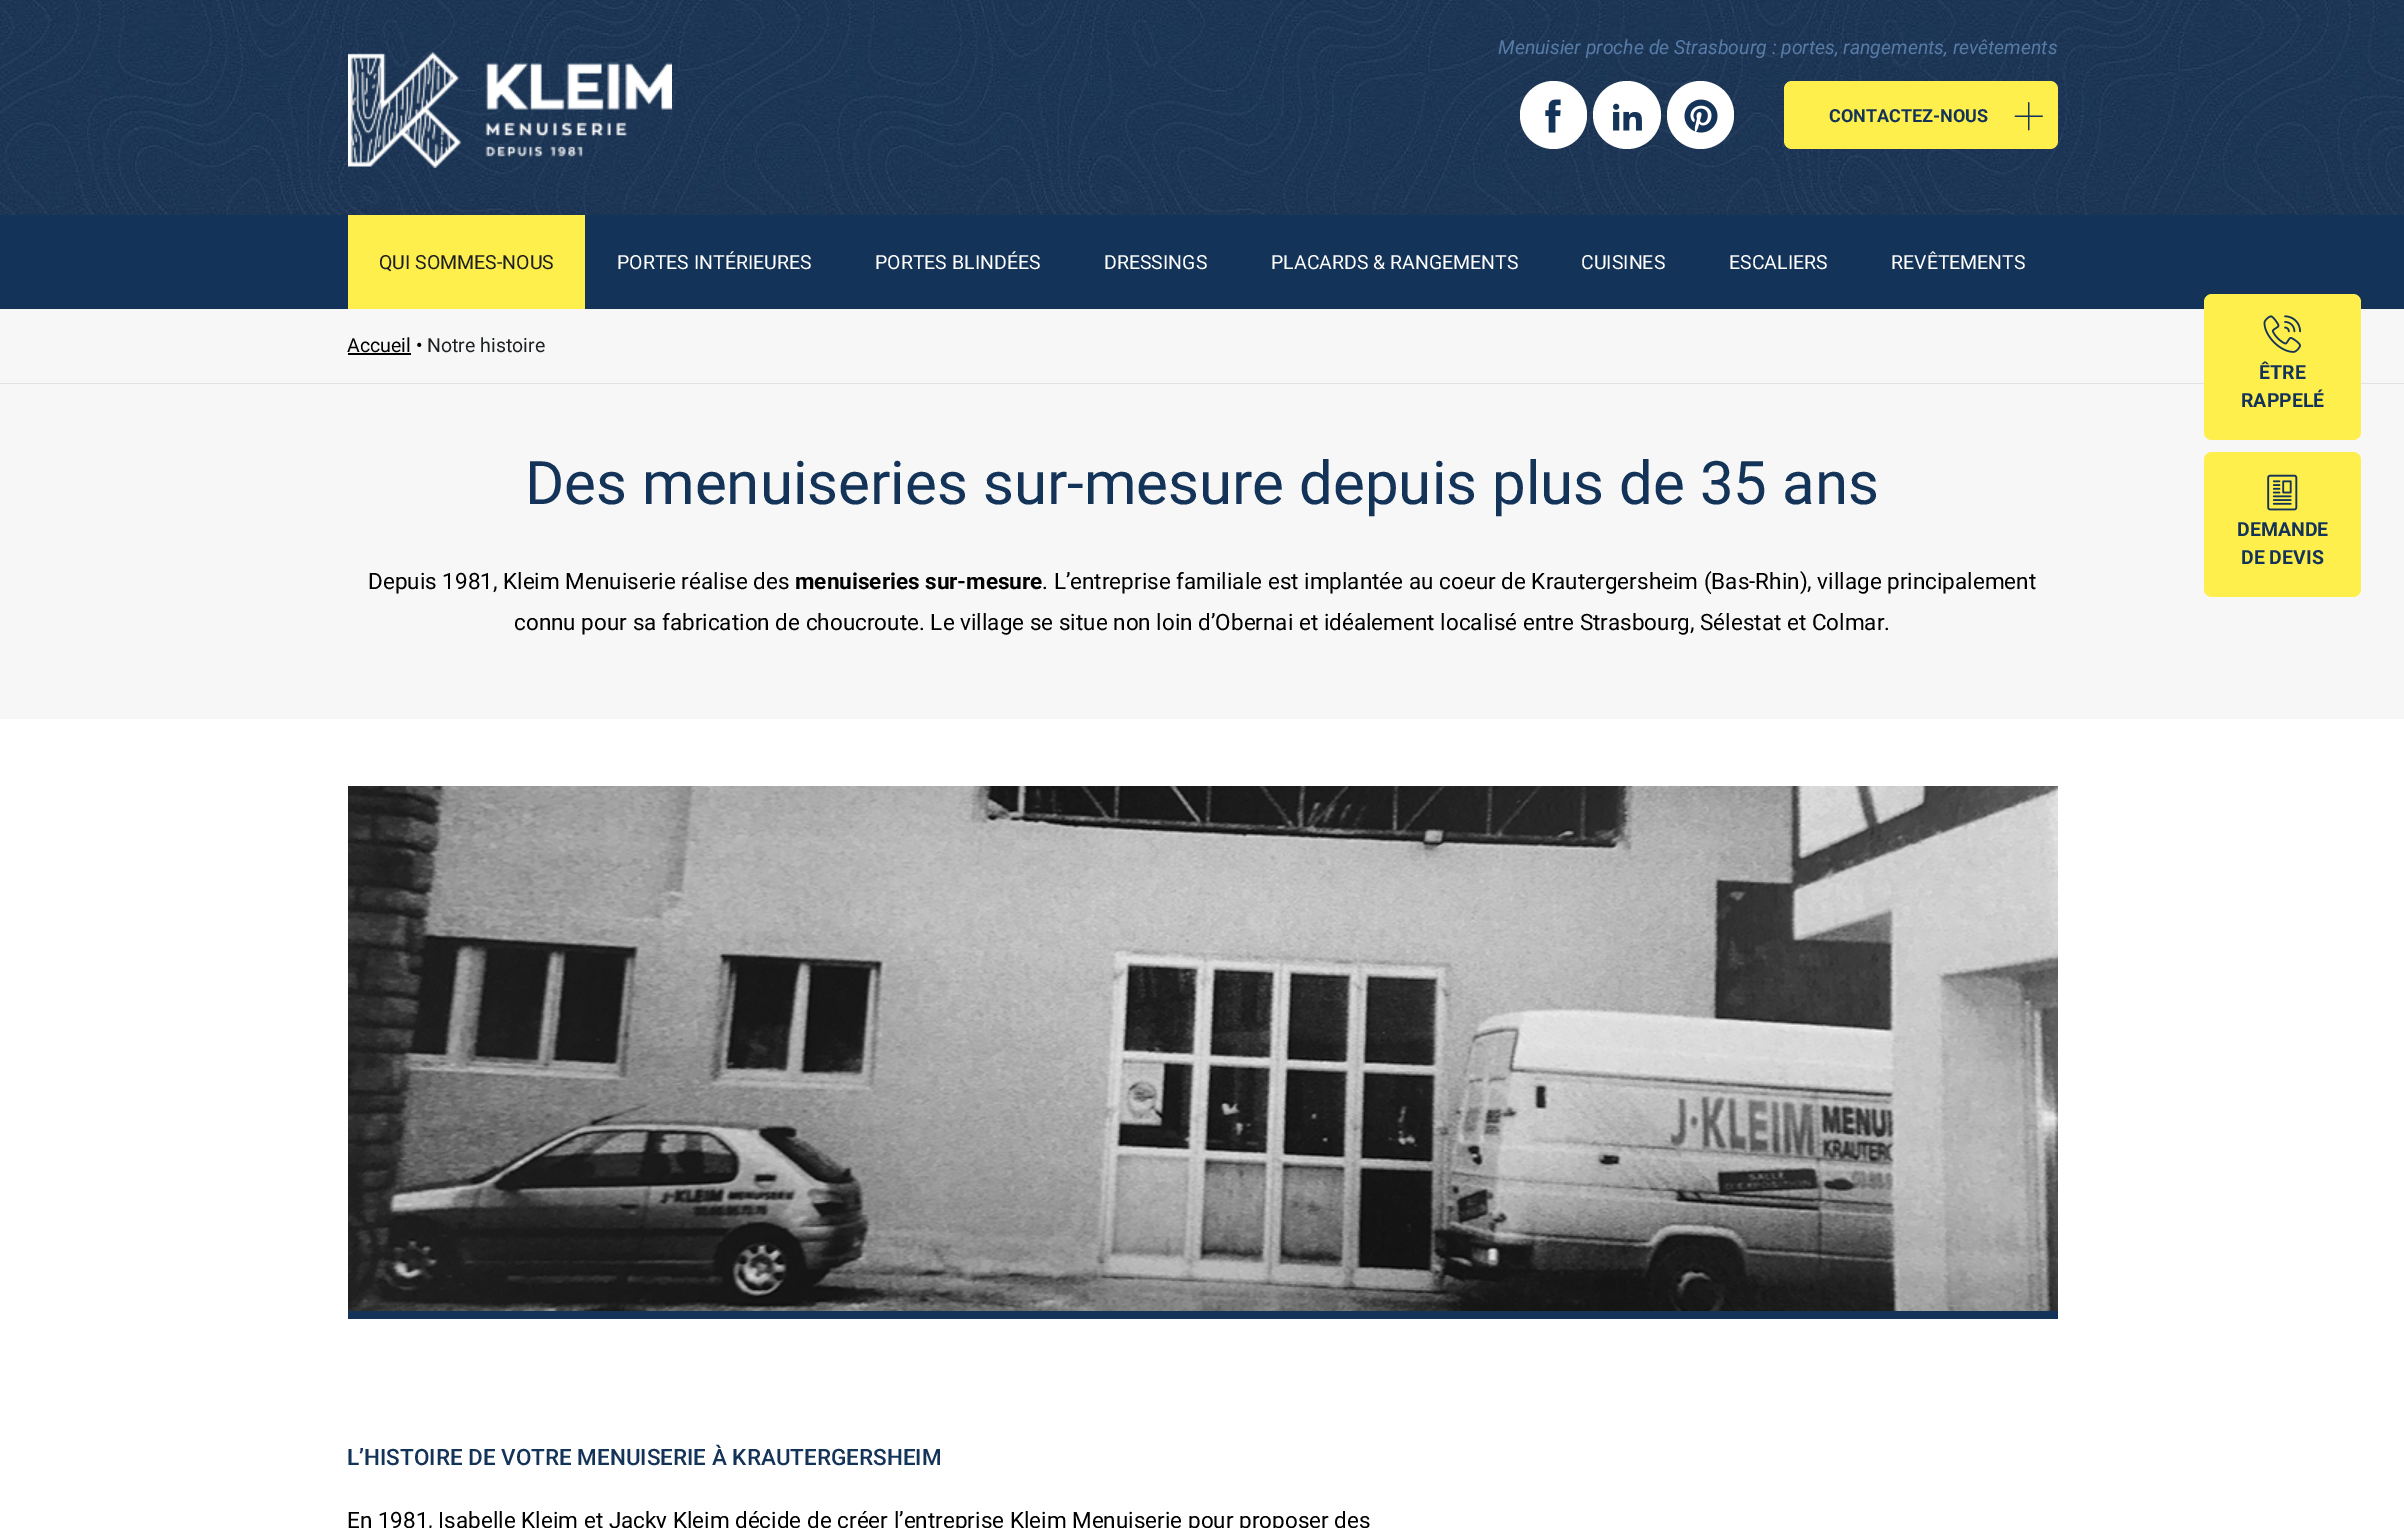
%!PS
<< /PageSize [2404 1528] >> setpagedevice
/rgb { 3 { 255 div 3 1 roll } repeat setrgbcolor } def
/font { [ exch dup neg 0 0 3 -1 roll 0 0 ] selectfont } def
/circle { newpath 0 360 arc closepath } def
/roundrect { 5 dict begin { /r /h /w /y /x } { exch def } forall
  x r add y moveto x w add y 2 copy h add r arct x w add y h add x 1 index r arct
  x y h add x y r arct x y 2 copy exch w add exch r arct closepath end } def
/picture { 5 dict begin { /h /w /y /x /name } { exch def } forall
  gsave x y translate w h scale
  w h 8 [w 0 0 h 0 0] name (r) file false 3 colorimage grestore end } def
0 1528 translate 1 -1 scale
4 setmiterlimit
255 255 255 rgb
0 0 2404 1528 rectfill
(img/1.rgb) 0 0 2404 215 picture
(img/2.rgb) 348 52 324 116 picture
1520 81 67 68 33.5 roundrect fill
(img/3.rgb) 1545 99 16 34 picture
1627 115 34 circle fill
(img/4.rgb) 1613 103 29 28 picture
1667 81 67 68 33.5 roundrect fill
(img/5.rgb) 1684 99 34 34 picture
255 239 77 rgb
1784 81 274 68 8 roundrect fill
(img/6.rgb) 2014 102 29 29 picture
[
  [0 215 2404 94 20 51 88]
  [348 215 237 94 255 239 77]
  [0 309 2404 74 247 247 247]
  [0 383 2404 1 227 227 227]
  [348 353 63 2 0 0 0]
  [0 384 2404 335 247 247 247]
  [348 1311 1710 8 20 51 88]
] { aload pop rgb rectfill } forall
(img/7.rgb) 348 786 1710 525 picture
255 239 77 rgb
2204 294 157 146 8 roundrect fill
(img/8.rgb) 2263 315 38 38 picture
2204 452 157 145 8 roundrect fill
(img/9.rgb) 2267 474 31 37 picture
/Roboto-Italic 19.5 font
87 123 166 rgb
1498 54 moveto (Menuisier proche de Strasbourg : portes, rangements, revêtements) show
/Roboto-Bold 18 font
20 51 88 rgb
1829 122 moveto (CONTACTEZ-NOUS) show
/Roboto-Regular 19.5 font
30 33 35 rgb
379 269 moveto (QUI SOMMES-NOUS) show
255 255 255 rgb
[
  [(PORTES INTÉRIEURES) 617 269]
  [(PORTES BLINDÉES) 875 269]
  [(DRESSINGS) 1104 269]
  [(PLACARDS & RANGEMENTS) 1271 269]
  [(CUISINES) 1581 269]
  [(ESCALIERS) 1729 269]
  [(REVÊTEMENTS) 1891 269]
] { aload pop moveto show } forall
0 0 0 rgb
347 352 moveto (Accueil •) show
30 33 35 rgb
427 352 moveto (Notre histoire) show
/Roboto-Regular 60 font
20 51 88 rgb
525 504 moveto (Des menuiseries sur-mesure depuis plus de 35 ans) show
/Roboto-Regular 22.5 font
0 0 0 rgb
368 589 moveto (Depuis 1981, Kleim Menuiserie réalise des) show
/Roboto-Bold 22.5 font
795 589 moveto (menuiseries sur-mesure) show
/Roboto-Regular 22.5 font
1042 589 moveto (. L’entreprise familiale est implantée au coeur de Krautergersheim \(Bas-Rhin\), village principalement) show
514 630 moveto (connu pour sa fabrication de choucroute. Le village se situe non loin d’Obernai et idéalement localisé entre Strasbourg, Sélestat et Colmar.) show
/Roboto-Medium 22.5 font
20 51 88 rgb
347 1465 moveto (L’HISTOIRE DE VOTRE MENUISERIE À KRAUTERGERSHEIM) show
/Roboto-Regular 22.5 font
0 0 0 rgb
347 1528 moveto (En 1981, Isabelle Kleim et Jacky Kleim décide de créer l’entreprise Kleim Menuiserie pour proposer des) show
/Roboto-Bold 19.5 font
20 51 88 rgb
[
  [(ÊTRE) 2259 379]
  [(RAPPELÉ) 2241 407]
  [(DEMANDE) 2237 536]
  [(DE DEVIS) 2241 564]
] { aload pop moveto show } forall
showpage
